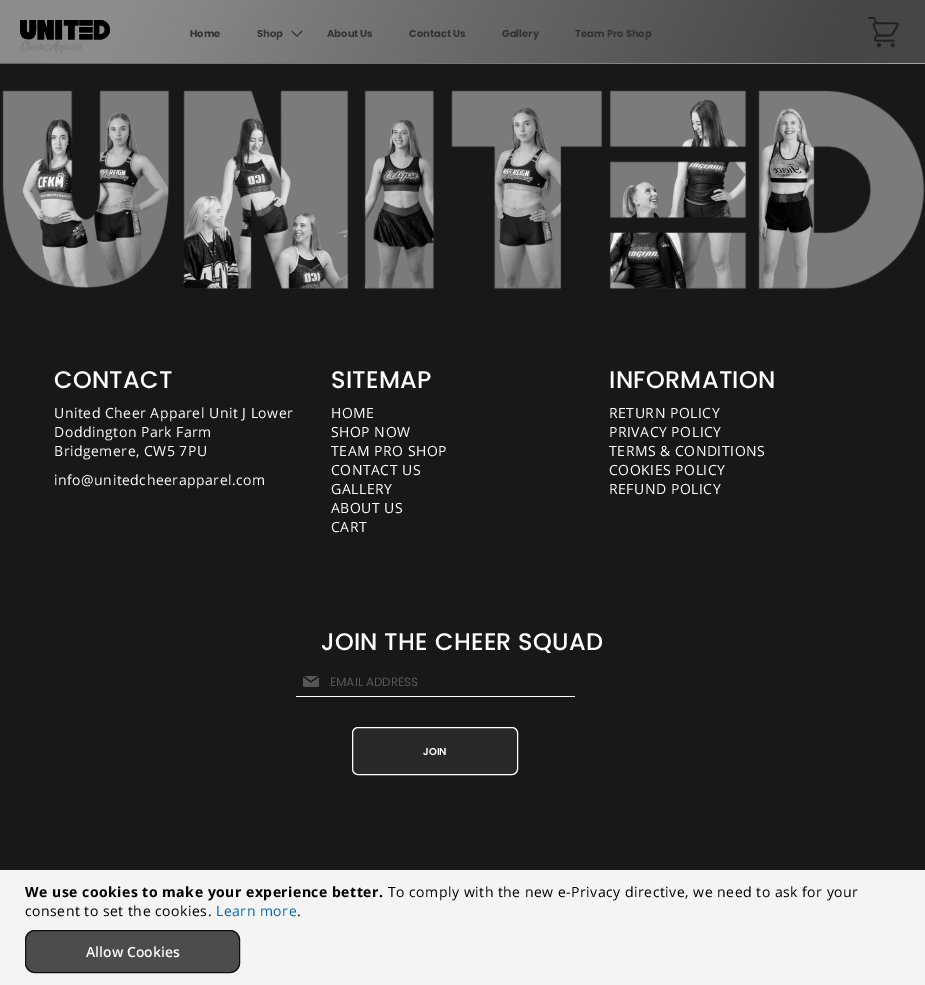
%!PS
<< /PageSize [925 985] /PageUsesTransparency true >> setpagedevice
/rgb { 3 { 255 div 3 1 roll } repeat setrgbcolor } def
/font { [ exch dup neg 0 0 3 -1 roll 0 0 ] selectfont } def
/alpha { dup .setfillconstantalpha .setstrokeconstantalpha } def
/roundrect { 5 dict begin { /r /h /w /y /x } { exch def } forall
  x r add y moveto x w add y 2 copy h add r arct x w add y h add x 1 index r arct
  x y h add x y r arct x y 2 copy exch w add exch r arct closepath end } def
/picture { 5 dict begin { /h /w /y /x /name } { exch def } forall
  gsave x y translate w h scale
  w h 8 [w 0 0 h 0 0] name (r) file false 3 colorimage grestore end } def
0 .pushpdf14devicefilter
0 985 translate 1 -1 scale
4 setmiterlimit
24 24 24 rgb
0 0 925 985 rectfill
gsave 0 0 moveto 925 0 lineto 925 63 lineto 0 63 lineto closepath clip newpath
<< /ShadingType 2 /ColorSpace /DeviceRGB /Coords [85 -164 840 227] /Extend [true true] /Function << /FunctionType 3 /Domain [0 1] /Functions [<< /FunctionType 2 /Domain [0 1] /C0 [0.549 0.549 0.549] /C1 [0.549 0.549 0.549] /N 1 >> << /FunctionType 2 /Domain [0 1] /C0 [0.549 0.549 0.549] /C1 [0.275 0.275 0.275] /N 1 >> << /FunctionType 2 /Domain [0 1] /C0 [0.275 0.275 0.275] /C1 [0.275 0.275 0.275] /N 1 >>] /Bounds [0.14 0.89] /Encode [0 1 0 1 0 1] >> >> shfill grestore
gsave 0 63 moveto 925 63 lineto 925 64 lineto 0 64 lineto closepath clip newpath
<< /ShadingType 2 /ColorSpace /DeviceRGB /Coords [85 -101 840 290] /Extend [true true] /Function << /FunctionType 3 /Domain [0 1] /Functions [<< /FunctionType 2 /Domain [0 1] /C0 [0.549 0.549 0.549] /C1 [0.549 0.549 0.549] /N 1 >> << /FunctionType 2 /Domain [0 1] /C0 [0.549 0.549 0.549] /C1 [0.275 0.275 0.275] /N 1 >> << /FunctionType 2 /Domain [0 1] /C0 [0.275 0.275 0.275] /C1 [0.275 0.275 0.275] /N 1 >>] /Bounds [0.14 0.89] /Encode [0 1 0 1 0 1] >> >> shfill grestore
(img/1.rgb) 0 63 925 1 picture
(img/2.rgb) 20 20 90 33 picture
(img/3.rgb) 291 30 12 7 picture
(img/4.rgb) 868 17 31 31 picture
(img/5.rgb) 2 90 923 199 picture
(img/6.rgb) 303 676 16 11 picture
255 255 255 rgb
296 696 279 1 rectfill
41 41 41 rgb
352.5 727.5 165 47 5.5 roundrect gsave fill grestore
255 255 255 rgb
stroke
244 244 244 rgb
0 870 925 115 rectfill
76 76 76 rgb
25 930 215 43 10 roundrect fill
0.8 alpha
0 0 0 rgb
25.5 930.5 214 42 9.5 roundrect stroke
/Poppins-Bold 10 font
1 alpha
51 51 51 rgb
[
  [(Home) 190 37]
  [(Shop) 257 37]
  [(About Us) 327 37]
  [(Contact Us) 409 37]
  [(Gallery) 502 37]
  [(Team Pro Shop) 575 37]
] { aload pop moveto show } forall
/Poppins-Medium 24 font
255 255 255 rgb
54 388 moveto 0.25 0 (CONTACT) ashow
/OpenSans-Regular 14 font
54 418 moveto 0.5 0 (United Cheer Apparel Unit J Lower) ashow
54 437 moveto 0.5 0 (Doddington Park Farm) ashow
54 456 moveto 0.5 0 (Bridgemere, CW5 7PU) ashow
54 485 moveto 0.5 0 (info@unitedcheerapparel.com) ashow
/Poppins-Medium 24 font
331 388 moveto 0.25 0 (SITEMAP) ashow
/OpenSans-Regular 14 font
331 418 moveto 0.5 0 (HOME) ashow
331 437 moveto 0.5 0 (SHOP NOW) ashow
331 456 moveto 0.5 0 (TEAM PRO SHOP) ashow
331 475 moveto 0.5 0 (CONTACT US) ashow
331 494 moveto 0.5 0 (GALLERY) ashow
331 513 moveto 0.5 0 (ABOUT US) ashow
331 532 moveto 0.5 0 (CART) ashow
/Poppins-Medium 24 font
609 388 moveto 0.25 0 (INFORMATION) ashow
/OpenSans-Regular 14 font
609 418 moveto 0.5 0 (RETURN POLICY) ashow
609 437 moveto 0.5 0 (PRIVACY POLICY) ashow
609 456 moveto 0.5 0 (TERMS & CONDITIONS) ashow
609 475 moveto 0.5 0 (COOKIES POLICY) ashow
609 494 moveto 0.5 0 (REFUND POLICY) ashow
/Poppins-Medium 24 font
321 650 moveto 0.25 0 (JOIN THE CHEER SQUAD) ashow
/Poppins-Regular 12 font
87 87 87 rgb
330 686 moveto (EMAIL ADDRESS) show
/Poppins-SemiBold 10 font
255 255 255 rgb
423 755 moveto (JOIN) show
/OpenSans-Bold 14 font
0 0 0 rgb
25 897 moveto 0.5 0 (We use cookies to make your experience better.) ashow
/OpenSans-Regular 14 font
388 897 moveto 0.5 0 (To comply with the new e-Privacy directive, we need to ask for your) ashow
25 916 moveto 0.5 0 (consent to set the cookies.) ashow
0 107 180 rgb
216 916 moveto 0.5 0 (Learn more) ashow
0 0 0 rgb
297 916 moveto 0.5 0 (.) ashow
/OpenSans-SemiBold 14 font
255 255 255 rgb
86 957 moveto (Allow Cookies) show
.poppdf14devicefilter showpage
